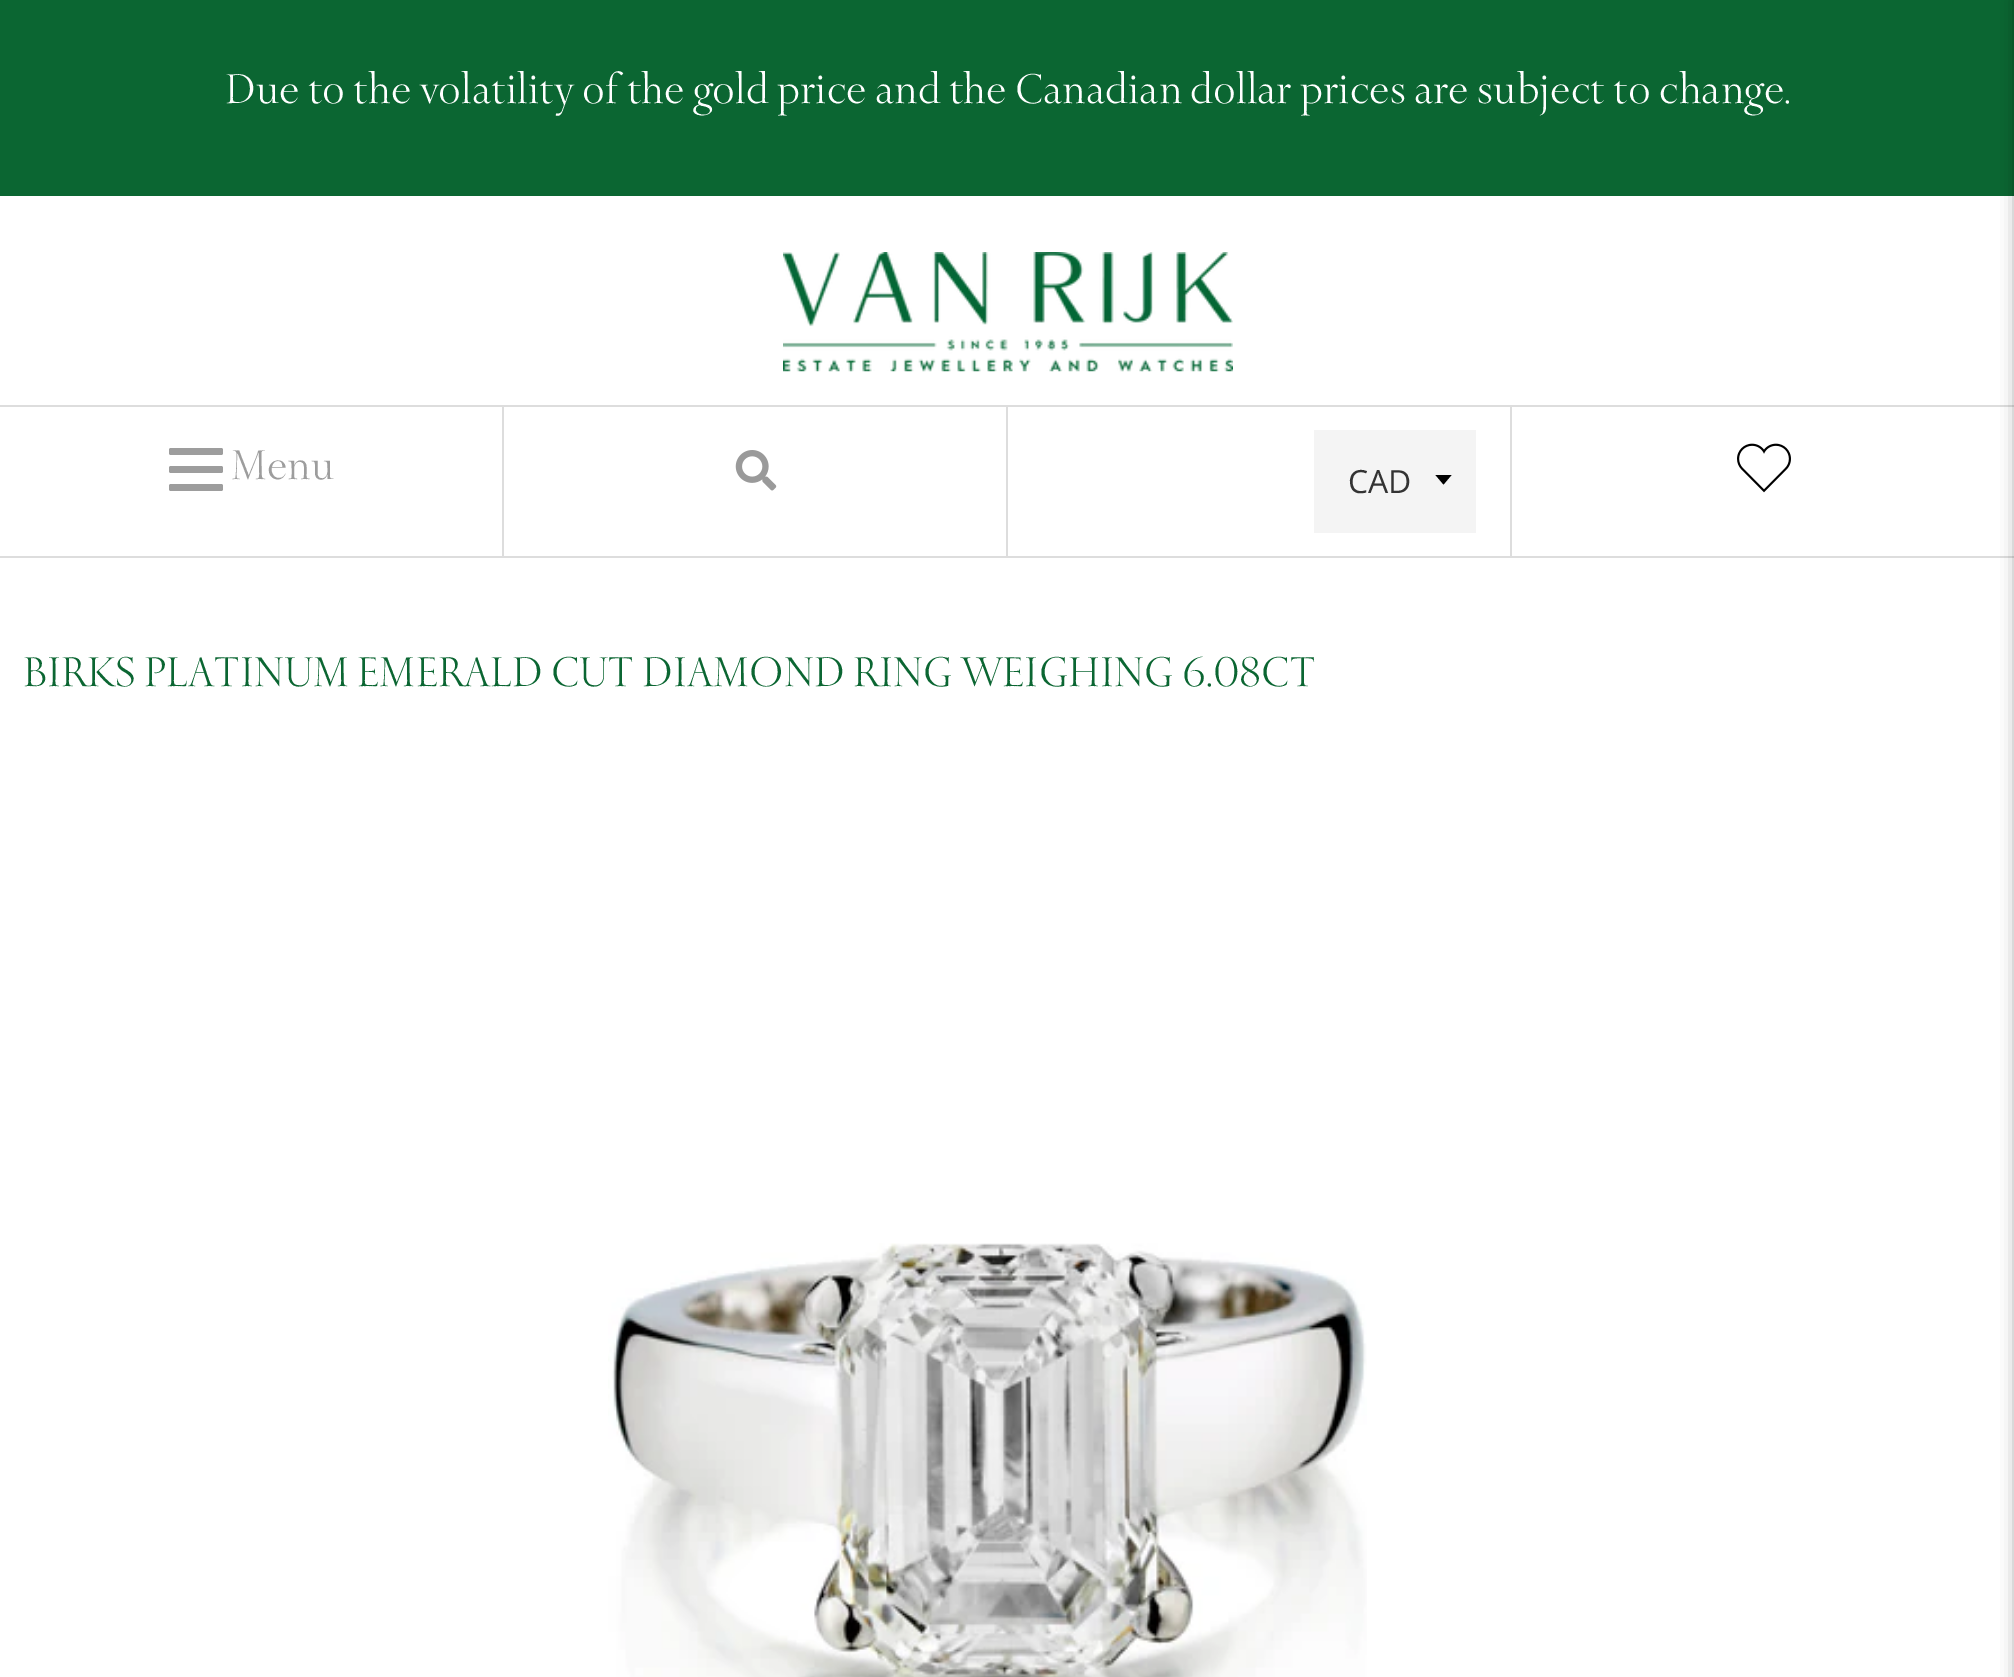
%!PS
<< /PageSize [2014 1677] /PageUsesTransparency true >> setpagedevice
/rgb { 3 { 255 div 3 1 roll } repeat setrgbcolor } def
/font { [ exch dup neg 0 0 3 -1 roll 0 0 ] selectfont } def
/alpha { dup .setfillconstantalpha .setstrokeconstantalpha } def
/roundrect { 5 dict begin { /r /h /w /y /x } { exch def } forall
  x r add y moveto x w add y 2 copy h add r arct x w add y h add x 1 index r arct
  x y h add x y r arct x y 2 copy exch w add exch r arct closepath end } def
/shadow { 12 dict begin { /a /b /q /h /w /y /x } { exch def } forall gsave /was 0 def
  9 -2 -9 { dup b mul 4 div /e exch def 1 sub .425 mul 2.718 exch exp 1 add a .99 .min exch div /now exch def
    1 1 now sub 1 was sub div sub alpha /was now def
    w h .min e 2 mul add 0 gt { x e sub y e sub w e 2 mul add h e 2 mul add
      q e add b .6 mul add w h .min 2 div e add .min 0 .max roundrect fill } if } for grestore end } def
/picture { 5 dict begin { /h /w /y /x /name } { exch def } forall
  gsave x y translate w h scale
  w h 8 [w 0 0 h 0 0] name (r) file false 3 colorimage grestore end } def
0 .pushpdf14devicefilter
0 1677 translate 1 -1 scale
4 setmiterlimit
255 255 255 rgb
0 0 2014 1677 rectfill
[
  [0 0 2014 196 11 102 50]
  [0 405 2014 2 221 221 221]
  [0 556 2014 2 221 221 221]
] { aload pop rgb rectfill } forall
0 0 0 rgb
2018 0 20 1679 0 8 0.5 shadow
(img/1.rgb) 783 252 450 120 picture
221 221 221 rgb
502 407 2 149 rectfill
157 157 157 rgb
169 448 54 7 2 roundrect fill
169 466 54 7 2 roundrect fill
169 484 54 7 2 roundrect fill
221 221 221 rgb
1006 407 2 149 rectfill
(img/2.rgb) 735 450 42 41 picture
1510 407 2 149 rectfill
244 244 244 rgb
1314 430 162 103 rectfill
0 0 0 rgb
1435.5 475 moveto 1443.5 484.5 lineto 1451.5 475 lineto closepath fill
(img/3.rgb) 1737 443 54 50 picture
(img/4.rgb) 608 1243 759 434 picture
/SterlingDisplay-Regular 45 font
255 255 255 rgb
225 103 moveto (Due to the volatility of the gold price and the Canadian dollar prices are subject to change.) show
157 157 157 rgb
231 479 moveto (Menu) show
/OpenSans-Regular 32 font
51 51 51 rgb
1348 493 moveto (CAD) show
/SterlingDisplay-Regular 45 font
11 102 50 rgb
23 686 moveto (BIRKS PLATINUM EMERALD CUT DIAMOND RING WEIGHING 6.08CT) show
.poppdf14devicefilter showpage
